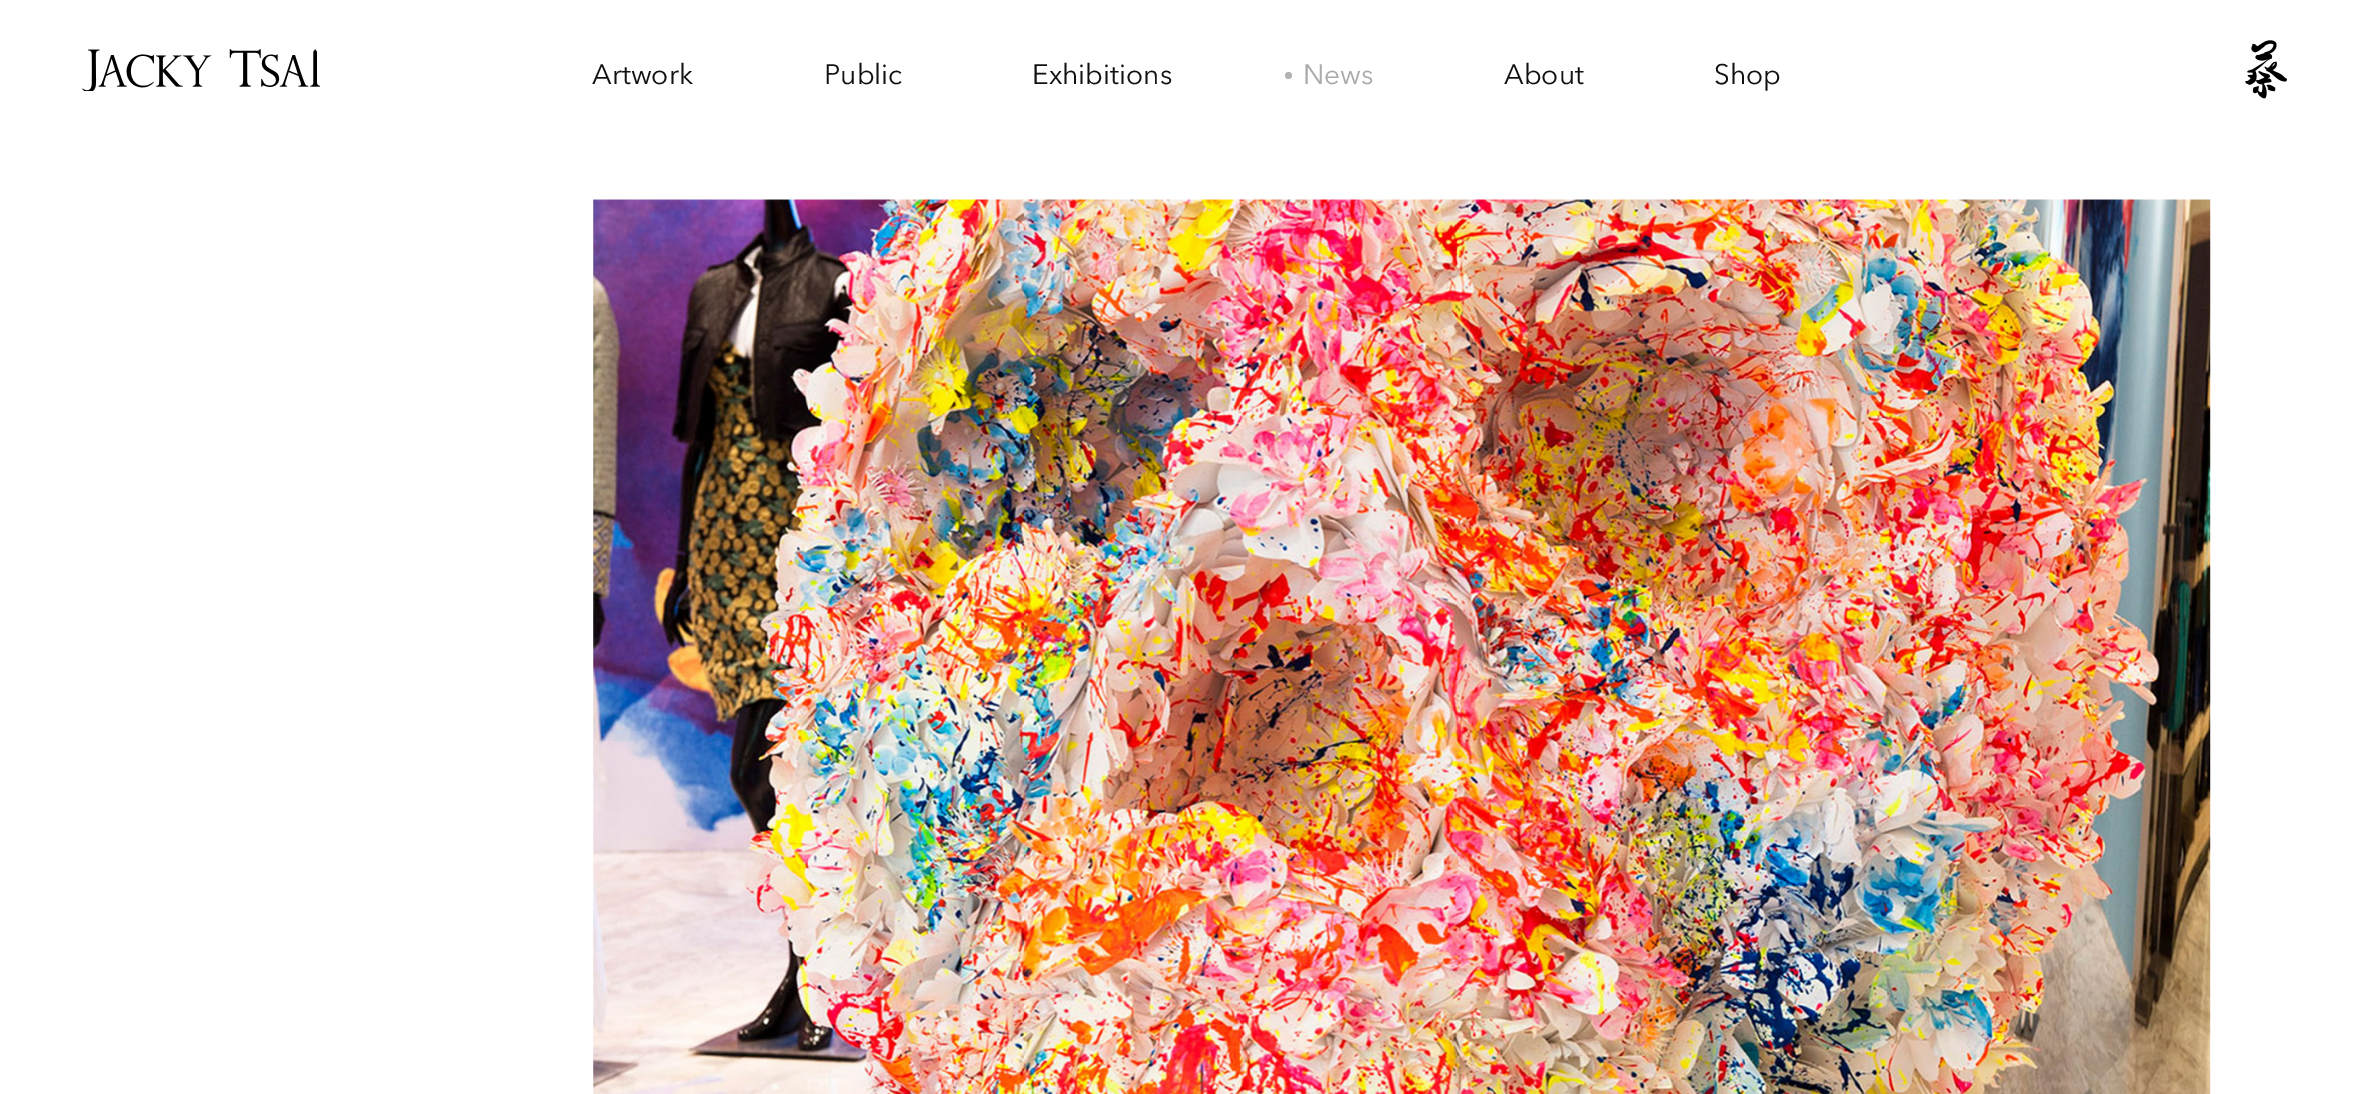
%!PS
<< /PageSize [2368 1094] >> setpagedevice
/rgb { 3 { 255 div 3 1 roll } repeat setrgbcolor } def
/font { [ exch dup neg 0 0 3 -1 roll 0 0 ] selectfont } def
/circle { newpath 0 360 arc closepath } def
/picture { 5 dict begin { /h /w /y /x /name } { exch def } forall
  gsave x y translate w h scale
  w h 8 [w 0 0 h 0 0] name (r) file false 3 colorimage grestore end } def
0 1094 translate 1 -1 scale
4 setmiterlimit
255 255 255 rgb
0 0 2368 1094 rectfill
(img/1.rgb) 82 49 238 42 picture
179 179 179 rgb
1288.5 75.5 3.5 circle fill
(img/2.rgb) 2245 40 42 59 picture
(img/3.rgb) 593 199 1618 895 picture
/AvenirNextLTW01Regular-Regular 28 font
17 17 17 rgb
[
  [(Artwork) 592 84]
  [(Public) 824 84]
  [(Exhibitions) 1032 84]
] { aload pop moveto show } forall
170 170 170 rgb
1303 84 moveto (News) show
17 17 17 rgb
1504 84 moveto (About) show
1714 84 moveto (Shop) show
showpage
